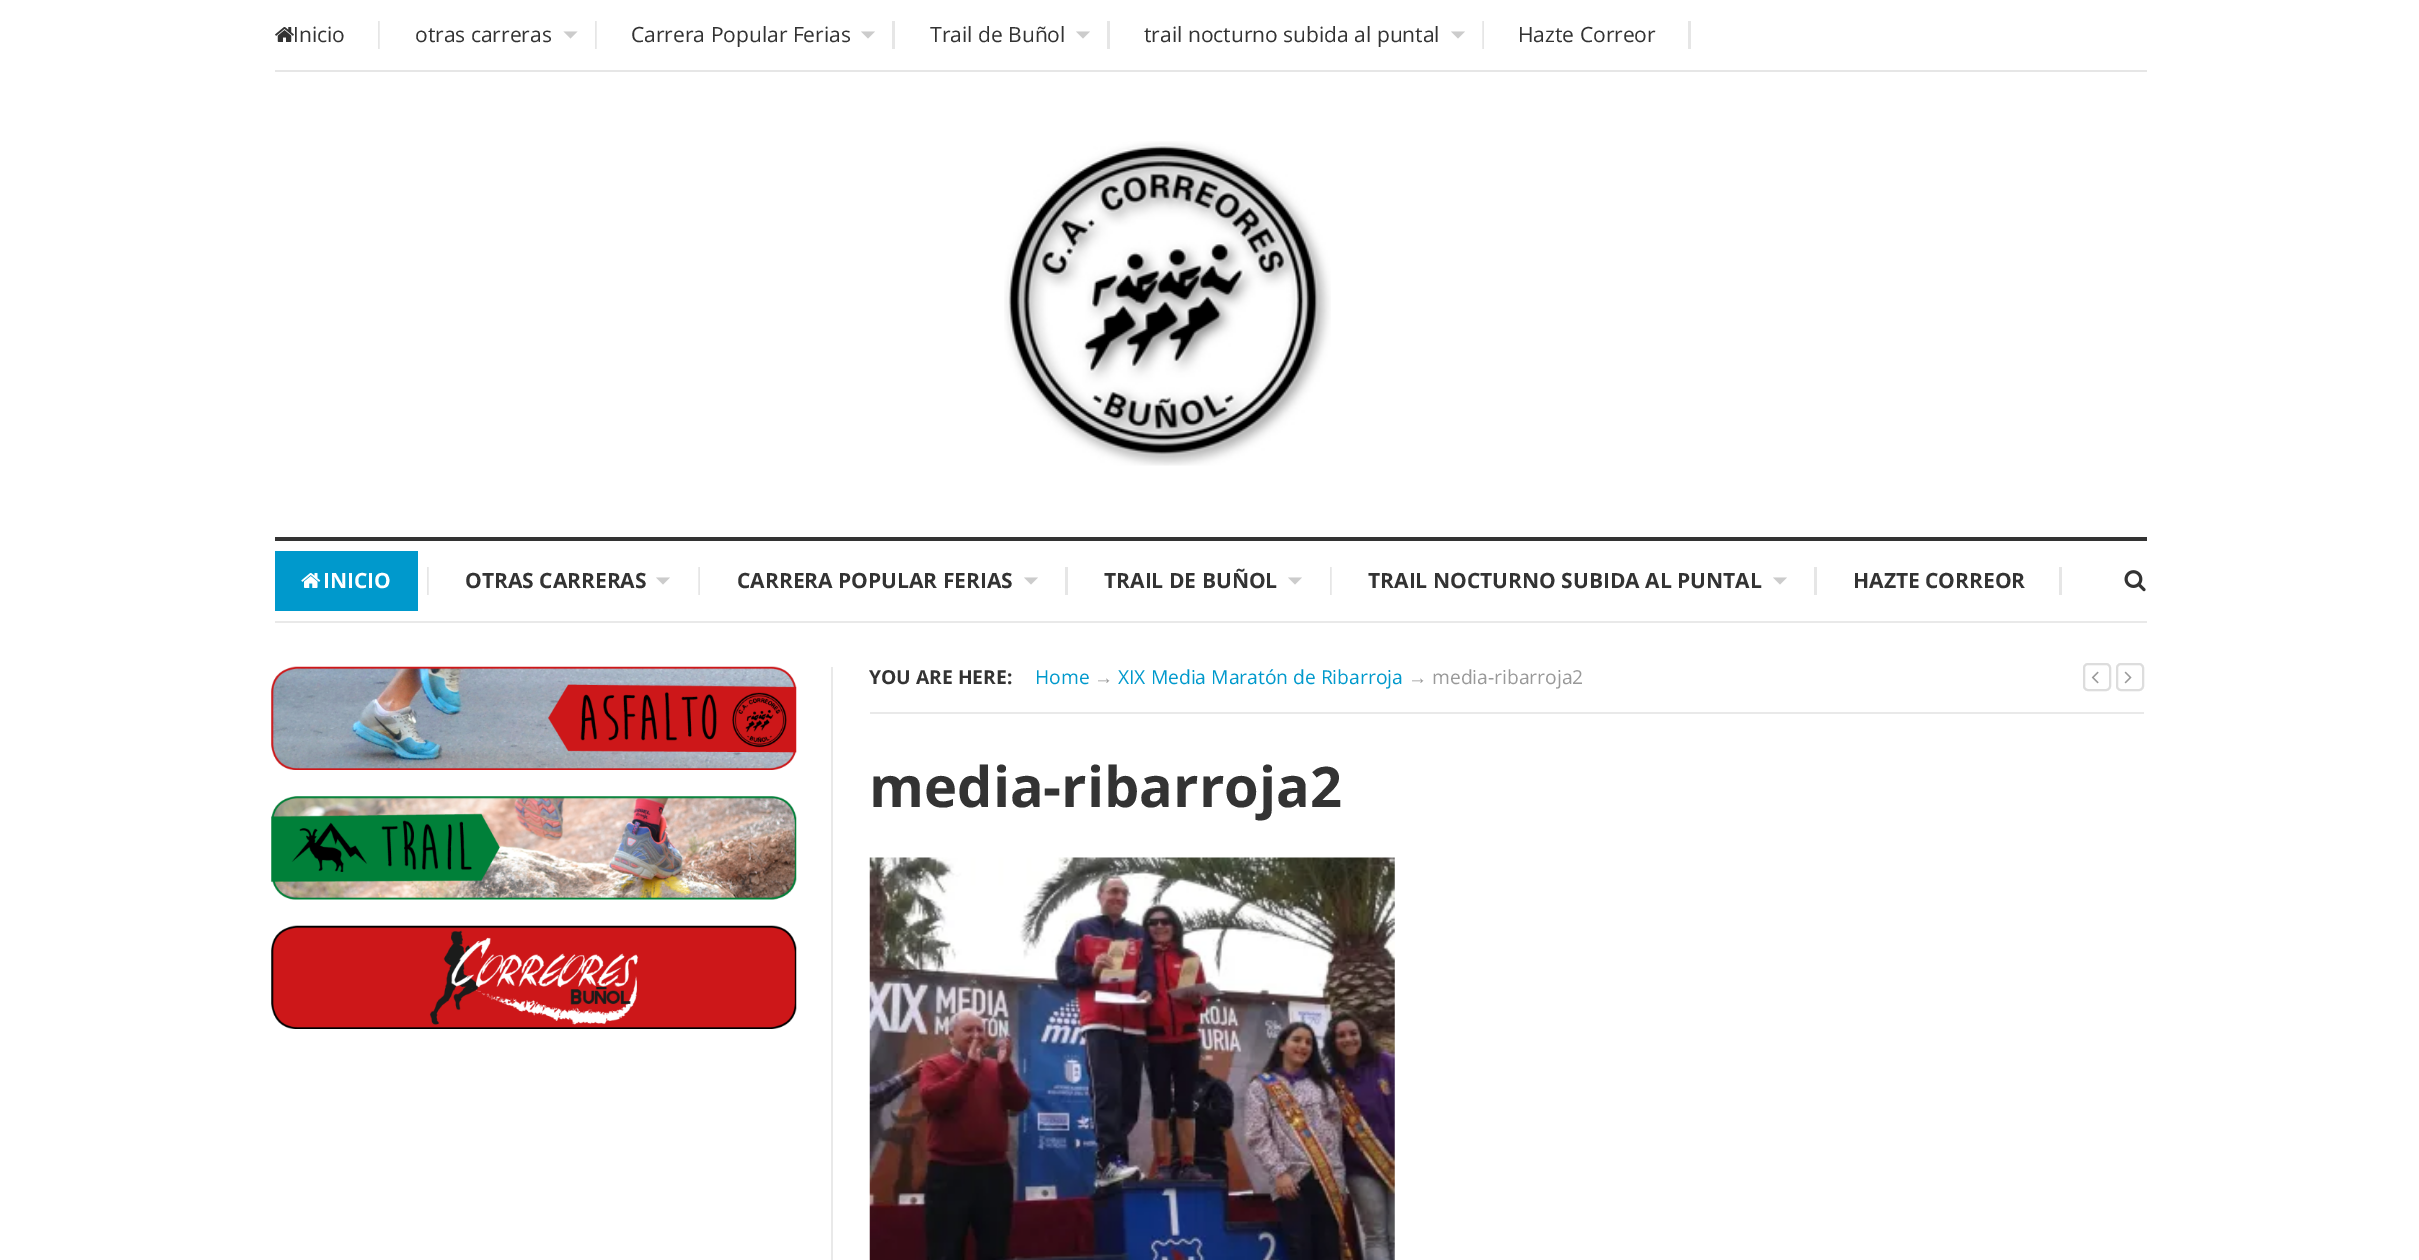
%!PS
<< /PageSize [2419 1260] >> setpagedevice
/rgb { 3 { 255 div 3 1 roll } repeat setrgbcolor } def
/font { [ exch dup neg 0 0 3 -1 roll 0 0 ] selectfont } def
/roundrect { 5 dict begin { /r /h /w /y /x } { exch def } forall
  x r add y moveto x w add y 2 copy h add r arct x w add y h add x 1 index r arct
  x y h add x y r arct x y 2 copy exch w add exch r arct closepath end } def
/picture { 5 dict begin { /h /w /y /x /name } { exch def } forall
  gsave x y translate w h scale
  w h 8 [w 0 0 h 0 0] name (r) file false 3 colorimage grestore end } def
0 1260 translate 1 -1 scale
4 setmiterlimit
255 255 255 rgb
0 0 2419 1260 rectfill
230 230 230 rgb
275 70 1872 2 rectfill
(img/1.rgb) 378 21 2 28 picture
(img/2.rgb) 275 27 19 15 picture
(img/1.rgb) 595 21 2 28 picture
204 204 204 rgb
563.5 31.5 moveto 577.5 31.5 lineto 570.5 38.5 lineto closepath fill
230 230 230 rgb
892 21 3 28 rectfill
204 204 204 rgb
861 31.5 moveto 875 31.5 lineto 868 38.5 lineto closepath fill
230 230 230 rgb
1107 21 3 28 rectfill
204 204 204 rgb
1076 31.5 moveto 1090 31.5 lineto 1083 38.5 lineto closepath fill
(img/3.rgb) 1482 21 2 28 picture
1451 31.5 moveto 1465 31.5 lineto 1458 38.5 lineto closepath fill
230 230 230 rgb
1688 21 3 28 rectfill
(img/4.rgb) 1004 141 327 325 picture
51 51 51 rgb
275 537 1872 4 rectfill
233 233 233 rgb
275 621 1872 2 rectfill
(img/1.rgb) 427 567 2 28 picture
0 153 204 rgb
275 551 143 60 rectfill
(img/5.rgb) 301 573 20 15 picture
(img/3.rgb) 698 567 2 28 picture
204 204 204 rgb
656 577.5 moveto 670 577.5 lineto 663 584.5 lineto closepath fill
230 230 230 rgb
1065 567 3 28 rectfill
204 204 204 rgb
1024 577.5 moveto 1038 577.5 lineto 1031 584.5 lineto closepath fill
(img/1.rgb) 1330 567 2 28 picture
1288 577.5 moveto 1302 577.5 lineto 1295 584.5 lineto closepath fill
230 230 230 rgb
1814 567 3 28 rectfill
204 204 204 rgb
1773 577.5 moveto 1787 577.5 lineto 1780 584.5 lineto closepath fill
230 230 230 rgb
2059 567 3 28 rectfill
(img/6.rgb) 2124 570 22 22 picture
233 233 233 rgb
831 667 2 593 rectfill
(img/7.rgb) 271 666 526 104 picture
(img/8.rgb) 271 796 526 104 picture
(img/9.rgb) 271 925 526 104 picture
870 712 1274 2 rectfill
221 221 221 rgb
2 setlinewidth
2084 664 26 26 4 roundrect stroke
(img/10.rgb) 2091 671 8 13 picture
2117 664 26 26 4 roundrect stroke
(img/11.rgb) 2124 671 8 13 picture
(img/12.rgb) 869 857 526 403 picture
/OpenSans-Regular 21 font
51 51 51 rgb
[
  [(Inicio) 293 42]
  [(otras carreras) 415 42]
  [(Carrera Popular Ferias) 631 42]
  [(Trail de Buñol) 930 42]
  [(trail nocturno subida al puntal) 1144 42]
  [(Hazte Correor) 1518 42]
] { aload pop moveto show } forall
/OpenSans-Bold 21 font
255 255 255 rgb
323 588 moveto (INICIO) show
51 51 51 rgb
[
  [(OTRAS CARRERAS) 465 588]
  [(CARRERA POPULAR FERIAS) 737 588]
  [(TRAIL DE BUÑOL) 1104 588]
  [(TRAIL NOCTURNO SUBIDA AL PUNTAL) 1368 588]
  [(HAZTE CORREOR) 1853 588]
] { aload pop moveto show } forall
/OpenSans-Bold 19.25 font
869 684 moveto (YOU ARE HERE:) show
/OpenSans-Regular 19.25 font
0 153 204 rgb
1035 684 moveto (Home) show
/LiberationSans-Regular 19.25 font
153 153 153 rgb
1094 684 moveto (→) show
/OpenSans-Regular 19.25 font
0 153 204 rgb
1118 684 moveto (XIX Media Maratón de Ribarroja) show
/LiberationSans-Regular 19.25 font
153 153 153 rgb
1408 684 moveto (→) show
/OpenSans-Regular 19.25 font
1432 684 moveto (media-ribarroja2) show
/OpenSans-Bold 56 font
51 51 51 rgb
869 807 moveto (media-ribarroja2) show
showpage
